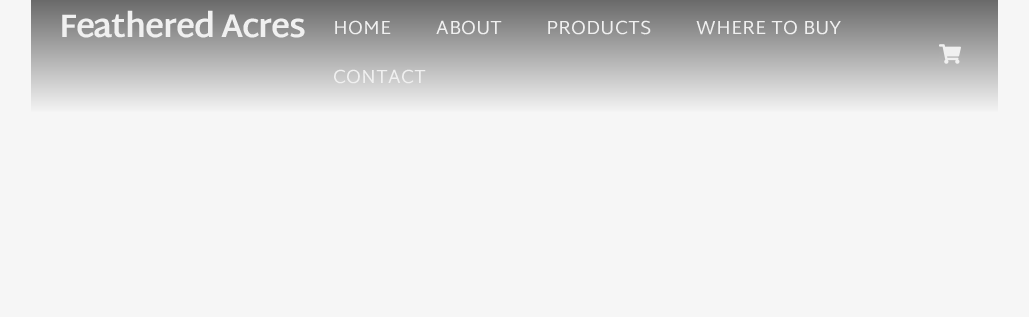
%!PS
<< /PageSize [1029 317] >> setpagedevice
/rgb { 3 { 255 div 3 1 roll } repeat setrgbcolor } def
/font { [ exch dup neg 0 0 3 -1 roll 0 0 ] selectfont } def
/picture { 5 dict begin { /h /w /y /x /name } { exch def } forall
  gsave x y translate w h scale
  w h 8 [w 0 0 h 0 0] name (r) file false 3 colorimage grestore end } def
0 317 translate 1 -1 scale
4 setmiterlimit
246 246 246 rgb
0 0 1029 317 rectfill
gsave 31 0 moveto 998 0 lineto 998 112 lineto 31 112 lineto closepath clip newpath
<< /ShadingType 2 /ColorSpace /DeviceRGB /Coords [515 0 515 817] /Extend [true true] /Function << /FunctionType 3 /Domain [0 1] /Functions [<< /FunctionType 2 /Domain [0 1] /C0 [0.416 0.416 0.416] /C1 [0.969 0.969 0.969] /N 1 >> << /FunctionType 2 /Domain [0 1] /C0 [0.969 0.969 0.969] /C1 [0.969 0.969 0.969] /N 1 >> << /FunctionType 2 /Domain [0 1] /C0 [0.969 0.969 0.969] /C1 [0.969 0.969 0.969] /N 1 >>] /Bounds [0.14 0.28] /Encode [0 1 0 1 0 1] >> >> shfill grestore
(img/1.rgb) 939 44 22 20 picture
/MartelSans-Bold 32.75 font
240 240 240 rgb
59 37 moveto -1.25 0 (Feathered Acres) ashow
/MartelSans-Regular 19.25 font
[
  [(HOME) 333 34]
  [(ABOUT) 436 34]
  [(PRODUCTS) 546 34]
  [(WHERE TO BUY) 696 34]
  [(CONTACT) 333 83]
] { aload pop moveto show } forall
showpage
